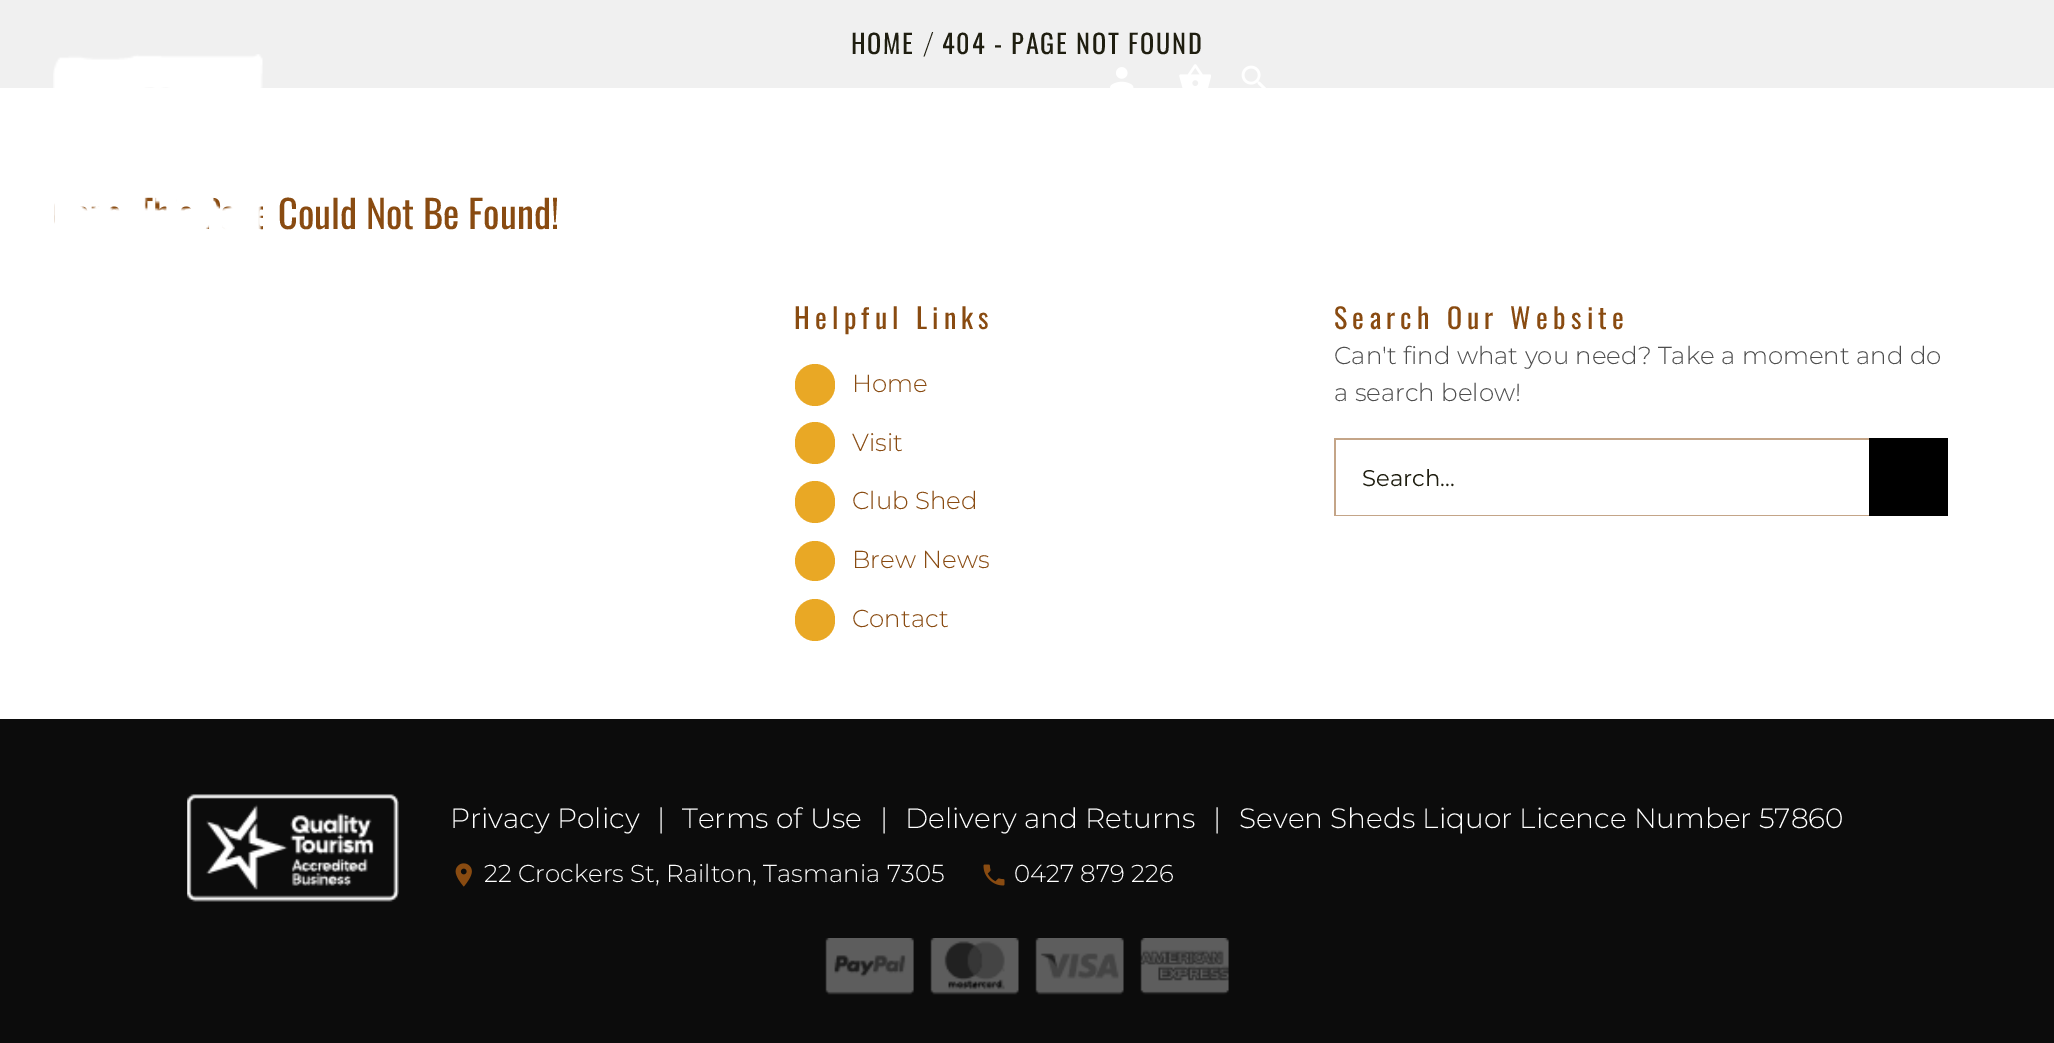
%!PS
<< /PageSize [2054 1043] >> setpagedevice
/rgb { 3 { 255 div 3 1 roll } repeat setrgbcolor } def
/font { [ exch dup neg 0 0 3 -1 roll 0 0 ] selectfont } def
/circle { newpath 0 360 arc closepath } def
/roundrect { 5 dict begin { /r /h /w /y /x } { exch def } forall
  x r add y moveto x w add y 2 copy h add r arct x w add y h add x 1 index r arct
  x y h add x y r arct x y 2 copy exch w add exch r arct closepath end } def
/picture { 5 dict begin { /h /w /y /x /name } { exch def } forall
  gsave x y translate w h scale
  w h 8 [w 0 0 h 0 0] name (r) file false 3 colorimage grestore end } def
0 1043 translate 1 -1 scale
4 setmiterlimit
255 255 255 rgb
0 0 2054 1043 rectfill
240 240 240 rgb
0 0 2054 88 rectfill
(img/1.rgb) 53 54 210 183 picture
(img/2.rgb) 1110 67 24 21 picture
(img/3.rgb) 1179 64 32 24 picture
(img/4.rgb) 1241 65 25 23 picture
233 168 37 rgb
795 364 40 42 20 roundrect fill
795 422 40 42 20 roundrect fill
795 481 40 42 20 roundrect fill
815 561 20 circle fill
795 599 40 42 20 roundrect fill
[
  [1334 438 535 2 196 165 136]
  [1334 515 535 1 196 165 136]
  [1334 438 2 78 196 165 136]
  [1869 438 79 78 0 0 0]
  [0 719 2054 324 12 12 12]
] { aload pop rgb rectfill } forall
(img/5.rgb) 187 794 212 108 picture
(img/6.rgb) 455 863 17 24 picture
(img/7.rgb) 983 864 22 22 picture
(img/8.rgb) 825 938 404 57 picture
/Oswald-Regular 26.25 font
31 30 16 rgb
851 54 moveto 1.75 0 (HOME) ashow
/Montserrat-Light 26.25 font
924 54 moveto (/) show
/Oswald-Regular 26.25 font
942 54 moveto 1.75 0 (404 - PAGE NOT FOUND) ashow
/Oswald-Regular 38.5 font
137 75 17 rgb
278 229 moveto (Could Not Be Found!) show
/Oswald-Regular 28 font
794 329 moveto 5.25 0 (Helpful Links) ashow
/Montserrat-Light 24.5 font
[
  [(Home) 852 392]
  [(Visit) 852 451]
  [(Club Shed) 852 509]
  [(Brew News) 852 568]
  [(Contact) 852 627]
] { aload pop moveto show } forall
/Oswald-Regular 28 font
1334 329 moveto 5.25 0 (Search Our Website) ashow
/Montserrat-Light 24.5 font
77 77 77 rgb
1334 364 moveto (Can't find what you need? Take a moment and do) show
1334 401 moveto (a search below!) show
/Montserrat-Regular 22.75 font
31 30 16 rgb
1362 486 moveto (Search...) show
/Montserrat-Light 28 font
255 255 255 rgb
[
  [(Privacy Policy) 450 828]
  [(|) 657 828]
  [(Terms of Use) 682 828]
  [(|) 880 828]
  [(Delivery and Returns) 905 828]
  [(|) 1213 828]
  [(Seven Sheds Liquor Licence Number 57860) 1239 828]
] { aload pop moveto show } forall
/Montserrat-Light 24.5 font
484 882 moveto (22 Crockers St, Railton, Tasmania 7305) show
1014 882 moveto (0427 879 226) show
showpage
